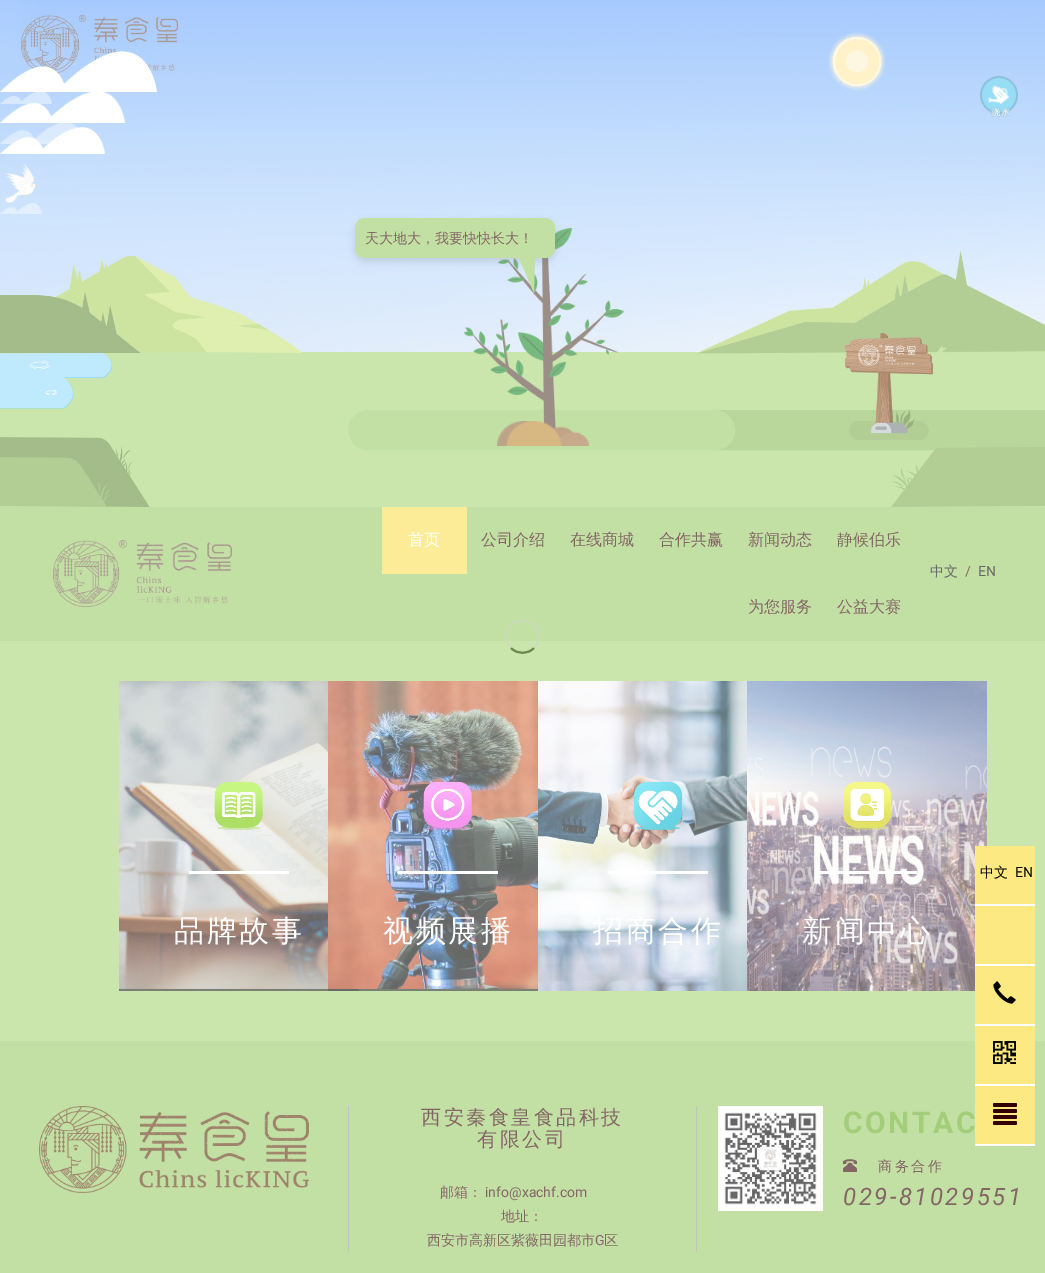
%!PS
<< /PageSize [1045 1273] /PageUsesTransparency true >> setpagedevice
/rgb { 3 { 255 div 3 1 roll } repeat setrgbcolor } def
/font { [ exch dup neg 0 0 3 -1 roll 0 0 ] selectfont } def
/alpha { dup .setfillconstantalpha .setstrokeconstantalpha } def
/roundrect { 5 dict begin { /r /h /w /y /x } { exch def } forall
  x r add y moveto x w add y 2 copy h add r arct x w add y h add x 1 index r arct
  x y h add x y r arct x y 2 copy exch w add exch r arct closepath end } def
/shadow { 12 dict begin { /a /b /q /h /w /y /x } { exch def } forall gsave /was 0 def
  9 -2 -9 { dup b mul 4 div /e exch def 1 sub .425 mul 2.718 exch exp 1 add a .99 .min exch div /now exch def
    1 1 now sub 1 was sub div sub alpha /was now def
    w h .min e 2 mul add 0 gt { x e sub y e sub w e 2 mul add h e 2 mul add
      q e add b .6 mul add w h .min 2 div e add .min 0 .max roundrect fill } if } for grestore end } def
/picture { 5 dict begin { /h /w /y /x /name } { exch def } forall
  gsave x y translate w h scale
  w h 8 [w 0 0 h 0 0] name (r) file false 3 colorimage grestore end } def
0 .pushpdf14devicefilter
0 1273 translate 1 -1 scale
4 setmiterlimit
194 224 164 rgb
0 0 1045 1273 rectfill
(img/1.rgb) 0 0 1045 507 picture
(img/2.rgb) 21 15 157 59 picture
(img/3.rgb) 828 32 58 59 picture
(img/4.rgb) 0 51 157 41 picture
(img/5.rgb) 0 92 52 12 picture
(img/6.rgb) 980 76 38 41 picture
(img/9.rgb) 0 127 105 27 picture
(img/8.rgb) 0 122 78 22 picture
(img/7.rgb) 0 92 125 31 picture
(img/10.rgb) 5 164 33 39 picture
(img/11.rgb) 0 203 42 11 picture
(img/12.rgb) 463 228 161 202 picture
(img/13.rgb) 497 421 92 25 picture
102 102 102 rgb
355 222 200 40 10 4 0.2 shadow
194 224 164 rgb
355 218 200 40 10 roundrect fill
519 258 moveto 535 258 lineto 534 293 lineto closepath fill
(img/14.rgb) 53 540 179 67 picture
[
  [382 507 85 67 253 236 151]
  [0 641 1045 400 202 230 173]
  [119 988 240 3 122 128 116]
] { aload pop rgb rectfill } forall
(img/15.rgb) 119 681 240 308 picture
(img/16.rgb) 214 781 49 49 picture
255 255 255 rgb
189 871 100 3 rectfill
0.8 alpha
102 102 102 rgb
328 988 210 3 rectfill
1 alpha
(img/17.rgb) 328 681 210 308 picture
(img/18.rgb) 423 781 49 50 picture
255 255 255 rgb
398 871 100 3 rectfill
(img/19.rgb) 538 681 209 310 picture
(img/20.rgb) 634 781 49 49 picture
608 871 100 3 rectfill
(img/21.rgb) 747 681 240 310 picture
(img/22.rgb) 843 781 49 49 picture
817 871 100 3 rectfill
(img/23.rgb) 39 1106 270 87 picture
194 194 194 rgb
696 1106 1 146 rectfill
348 1106 1 146 rectfill
(img/24.rgb) 718 1106 105 105 picture
(img/25.rgb) 843 1159 14 13 picture
108 136 78 rgb
2 setlinewidth
534 648 moveto 528 654.5 517 654.5 511 648 curveto stroke
0.4 alpha
208 208 208 rgb
511 648 moveto 508 645 506 641 506 636.5 curveto 506 617 535 614 538.5 633.5 curveto 540 638.5 538 644.5 534 648 curveto stroke
1 alpha
[
  [975 846 60 58 253 233 129]
  [975 904 60 2 255 255 255]
  [975 906 60 58 253 233 129]
  [975 964 60 2 255 255 255]
  [975 966 60 58 253 233 129]
  [975 1024 60 2 255 255 255]
] { aload pop rgb rectfill } forall
(img/26.rgb) 993 981 23 23 picture
253 233 129 rgb
975 1026 60 58 rectfill
255 255 255 rgb
975 1084 60 2 rectfill
(img/27.rgb) 993 1041 23 23 picture
253 233 129 rgb
975 1086 60 58 rectfill
255 255 255 rgb
975 1144 60 2 rectfill
(img/28.rgb) 993 1103 24 22 picture
/WenQuanYiZenHei-Medium 14 font
133 102 102 rgb
365 243 moveto (天大地大，我要快快长大！) show
/WenQuanYiZenHei-Medium 16 font
255 255 255 rgb
408 545 moveto (首页) show
133 102 102 rgb
[
  [(公司介绍) 481 545]
  [(在线商城) 570 545]
  [(合作共赢) 659 545]
  [(新闻动态) 748 545]
  [(静候伯乐) 837 545]
  [(为您服务) 748 612]
  [(公益大赛) 837 612]
] { aload pop moveto show } forall
/WenQuanYiZenHei-Medium 14 font
102 102 102 rgb
930 576 moveto (中文) show
/Roboto-Regular 14 font
133 102 102 rgb
965 576 moveto (/) show
102 102 102 rgb
978 576 moveto (EN) show
/WenQuanYiZenHei-Medium 30 font
255 255 255 rgb
174 941 moveto 2.5 0 (品牌故事) ashow
383 941 moveto 2.5 0 (视频展播) ashow
593 941 moveto 2.5 0 (招商合作) ashow
802 941 moveto 2.5 0 (新闻中心) ashow
/WenQuanYiZenHei-Medium 20 font
133 102 102 rgb
421 1124 moveto 2.5 0 (西安秦食皇食品科技) ashow
477 1146 moveto 2.5 0 (有限公司) ashow
/WenQuanYiZenHei-Medium 14 font
440 1197 moveto (邮箱：) show
/Roboto-Regular 14 font
485 1197 moveto (info@xachf.com) show
/WenQuanYiZenHei-Medium 14 font
501 1221 moveto (地址：) show
427 1245 moveto (西安市高新区紫薇田园都市) show
/Roboto-Regular 14 font
595 1245 moveto (G) show
/WenQuanYiZenHei-Medium 14 font
604 1245 moveto (区) show
/Roboto-Bold 30 font
164 205 122 rgb
843 1133 moveto 2.5 0 (CONTAC) ashow
/WenQuanYiZenHei-Medium 14 font
133 102 102 rgb
878 1171 moveto 2.5 0 (商务合作) ashow
/Roboto-Italic 24 font
843 1205 moveto 2.5 0 (029-81029551) ashow
/WenQuanYiZenHei-Medium 14 font
0 0 0 rgb
980 877 moveto (中文) show
/Roboto-Regular 14 font
1015 877 moveto (EN) show
.poppdf14devicefilter showpage
